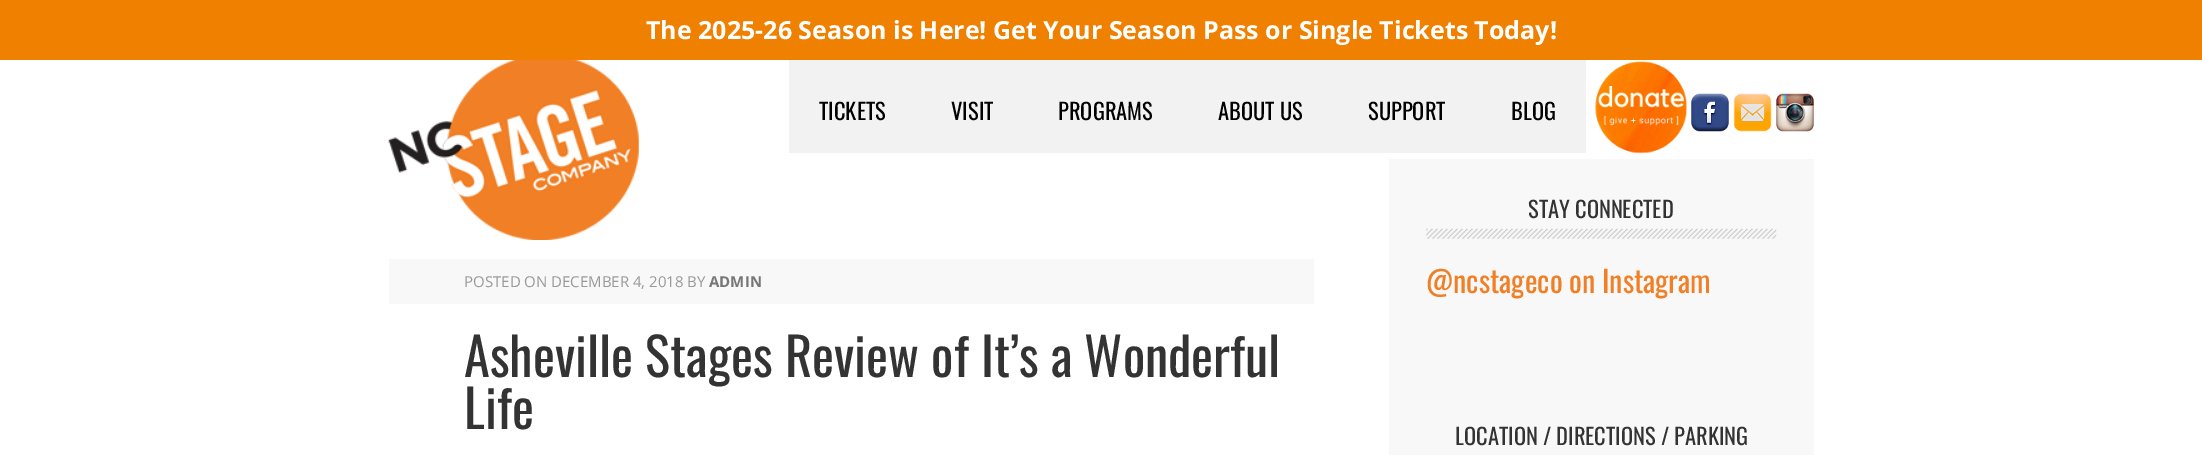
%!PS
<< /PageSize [2202 455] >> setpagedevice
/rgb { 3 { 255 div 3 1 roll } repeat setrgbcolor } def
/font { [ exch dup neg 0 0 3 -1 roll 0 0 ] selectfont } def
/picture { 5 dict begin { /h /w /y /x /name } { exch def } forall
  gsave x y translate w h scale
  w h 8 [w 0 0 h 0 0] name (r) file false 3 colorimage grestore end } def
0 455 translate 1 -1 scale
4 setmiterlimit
255 255 255 rgb
0 0 2202 455 rectfill
240 128 0 rgb
0 0 2202 60 rectfill
(img/1.rgb) 388 60 251 180 picture
242 242 242 rgb
789 60 797 93 rectfill
(img/2.rgb) 1595 61 92 93 picture
(img/3.rgb) 1691 93 38 39 picture
(img/4.rgb) 1733 93 39 39 picture
(img/5.rgb) 1776 93 38 39 picture
248 248 248 rgb
389 259 925 45 rectfill
1389 159 425 296 rectfill
(img/6.rgb) 1426 228 351 11 picture
/OpenSans-Bold 25 font
255 255 255 rgb
646 39 moveto (The 2025-26 Season is Here! Get Your Season Pass or Single Tickets Today!) show
/Oswald-Regular 22.5 font
0 0 0 rgb
[
  [(TICKETS) 819 120]
  [(VISIT) 951 120]
  [(PROGRAMS) 1058 120]
  [(ABOUT US) 1218 120]
  [(SUPPORT) 1368 120]
  [(BLOG) 1511 120]
] { aload pop moveto show } forall
/OpenSans-Regular 15 font
153 153 153 rgb
464 287 moveto (POSTED ON DECEMBER 4, 2018 BY) show
/OpenSans-Bold 15 font
119 119 119 rgb
709 287 moveto (ADMIN) show
/Oswald-Regular 52.5 font
51 51 51 rgb
464 377 moveto (Asheville Stages Review of It’s a Wonderful) show
464 429 moveto (Life) show
/Oswald-Regular 22.5 font
1528 218 moveto (STAY CONNECTED) show
/Oswald-Regular 30 font
241 127 37 rgb
1426 293 moveto (@ncstageco on Instagram) show
/Oswald-Regular 22.5 font
51 51 51 rgb
1455 445 moveto (LOCATION / DIRECTIONS / PARKING) show
showpage
